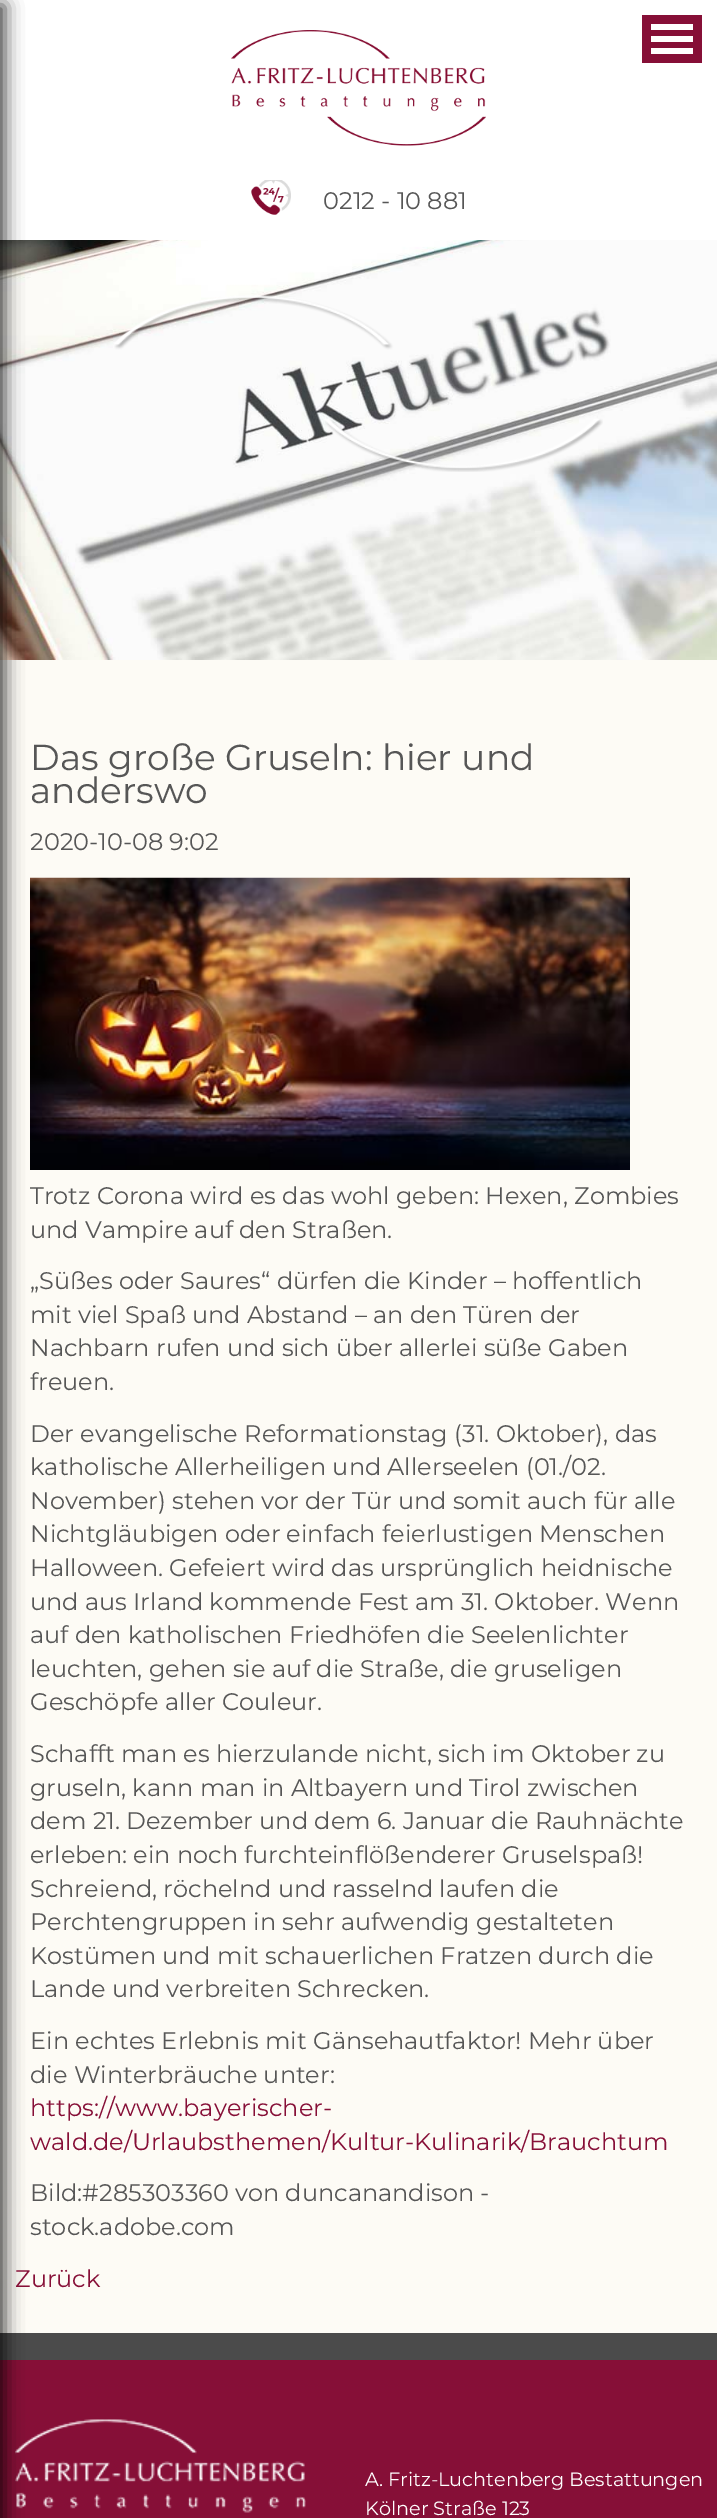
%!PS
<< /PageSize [717 2518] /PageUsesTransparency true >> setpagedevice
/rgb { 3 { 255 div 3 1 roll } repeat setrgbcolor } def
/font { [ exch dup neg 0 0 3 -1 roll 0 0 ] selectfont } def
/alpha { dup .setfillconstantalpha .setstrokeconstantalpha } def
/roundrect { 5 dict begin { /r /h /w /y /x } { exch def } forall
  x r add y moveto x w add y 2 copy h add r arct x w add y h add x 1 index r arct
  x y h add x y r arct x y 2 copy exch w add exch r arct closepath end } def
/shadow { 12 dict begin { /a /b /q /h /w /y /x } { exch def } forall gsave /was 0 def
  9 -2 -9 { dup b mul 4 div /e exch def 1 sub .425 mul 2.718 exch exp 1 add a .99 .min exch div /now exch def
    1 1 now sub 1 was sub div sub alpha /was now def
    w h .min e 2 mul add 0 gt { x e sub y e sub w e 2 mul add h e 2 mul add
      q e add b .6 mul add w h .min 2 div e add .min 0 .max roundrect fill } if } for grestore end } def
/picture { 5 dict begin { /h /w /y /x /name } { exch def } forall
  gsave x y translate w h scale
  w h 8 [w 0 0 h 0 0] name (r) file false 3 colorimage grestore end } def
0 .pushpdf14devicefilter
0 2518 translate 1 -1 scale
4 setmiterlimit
253 251 245 rgb
0 0 717 2518 rectfill
255 255 255 rgb
0 0 717 240 rectfill
(img/4.rgb) 0 240 717 420 picture
(img/5.rgb) 30 877 600 293 picture
75 75 75 rgb
0 2333 717 27 rectfill
134 15 55 rgb
0 2360 717 158 rectfill
(img/6.rgb) 15 2419 291 94 picture
0 0 0 rgb
-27 5 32 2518 0 9 0.75 shadow
[
  [642 15 60 48 134 15 55]
  [651 36 42 6 255 255 255]
  [651 24 42 6 255 255 255]
  [651 48 42 6 255 255 255]
] { aload pop rgb rectfill } forall
(img/1.rgb) 231 30 255 116 picture
(img/2.rgb) 251 180 40 35 picture
(img/3.rgb) 114 295 489 177 picture
/Montserrat-Regular 24 font
86 86 86 rgb
323 209 moveto (0212 - 10 881) show
/Montserrat-Regular 36 font
30 770 moveto (Das große Gruseln: hier und) show
30 803 moveto (anderswo) show
/Montserrat-Regular 24 font
[
  [(2020-10-08 9:02) 30 850]
  [(Trotz Corona wird es das wohl geben: Hexen, Zombies) 30 1204]
  [(und Vampire auf den Straßen.) 30 1238]
  [(„Süßes oder Saures“ dürfen die Kinder – hoffentlich) 30 1289]
  [(mit viel Spaß und Abstand – an den Türen der) 30 1323]
  [(Nachbarn rufen und sich über allerlei süße Gaben) 30 1356]
  [(freuen.) 30 1390]
  [(Der evangelische Reformationstag \(31. Oktober\), das) 30 1442]
  [(katholische Allerheiligen und Allerseelen \(01./02.) 30 1475]
  [(November\) stehen vor der Tür und somit auch für alle) 30 1509]
  [(Nichtgläubigen oder einfach feierlustigen Menschen) 30 1542]
  [(Halloween. Gefeiert wird das ursprünglich heidnische) 30 1576]
  [(und aus Irland kommende Fest am 31. Oktober. Wenn) 30 1610]
  [(auf den katholischen Friedhöfen die Seelenlichter) 30 1643]
  [(leuchten, gehen sie auf die Straße, die gruseligen) 30 1677]
  [(Geschöpfe aller Couleur.) 30 1710]
  [(Schafft man es hierzulande nicht, sich im Oktober zu) 30 1762]
  [(gruseln, kann man in Altbayern und Tirol zwischen) 30 1796]
  [(dem 21. Dezember und dem 6. Januar die Rauhnächte) 30 1829]
  [(erleben: ein noch furchteinflößenderer Gruselspaß!) 30 1863]
  [(Schreiend, röchelnd und rasselnd laufen die) 30 1897]
  [(Perchtengruppen in sehr aufwendig gestalteten) 30 1930]
  [(Kostümen und mit schauerlichen Fratzen durch die) 30 1964]
  [(Lande und verbreiten Schrecken.) 30 1997]
  [(Ein echtes Erlebnis mit Gänsehautfaktor! Mehr über) 30 2049]
  [(die Winterbräuche unter:) 30 2083]
] { aload pop moveto show } forall
134 15 55 rgb
30 2116 moveto (https://www.bayerischer-) show
30 2150 moveto (wald.de/Urlaubsthemen/Kultur-Kulinarik/Brauchtum) show
86 86 86 rgb
30 2201 moveto (Bild:#285303360 von duncanandison -) show
30 2235 moveto (stock.adobe.com) show
134 15 55 rgb
15 2287 moveto (Zurück) show
/Montserrat-Regular 19.25 font
255 255 255 rgb
365 2486 moveto (A. Fritz-Luchtenberg Bestattungen) show
365 2515 moveto (Kölner Straße 123) show
.poppdf14devicefilter showpage
